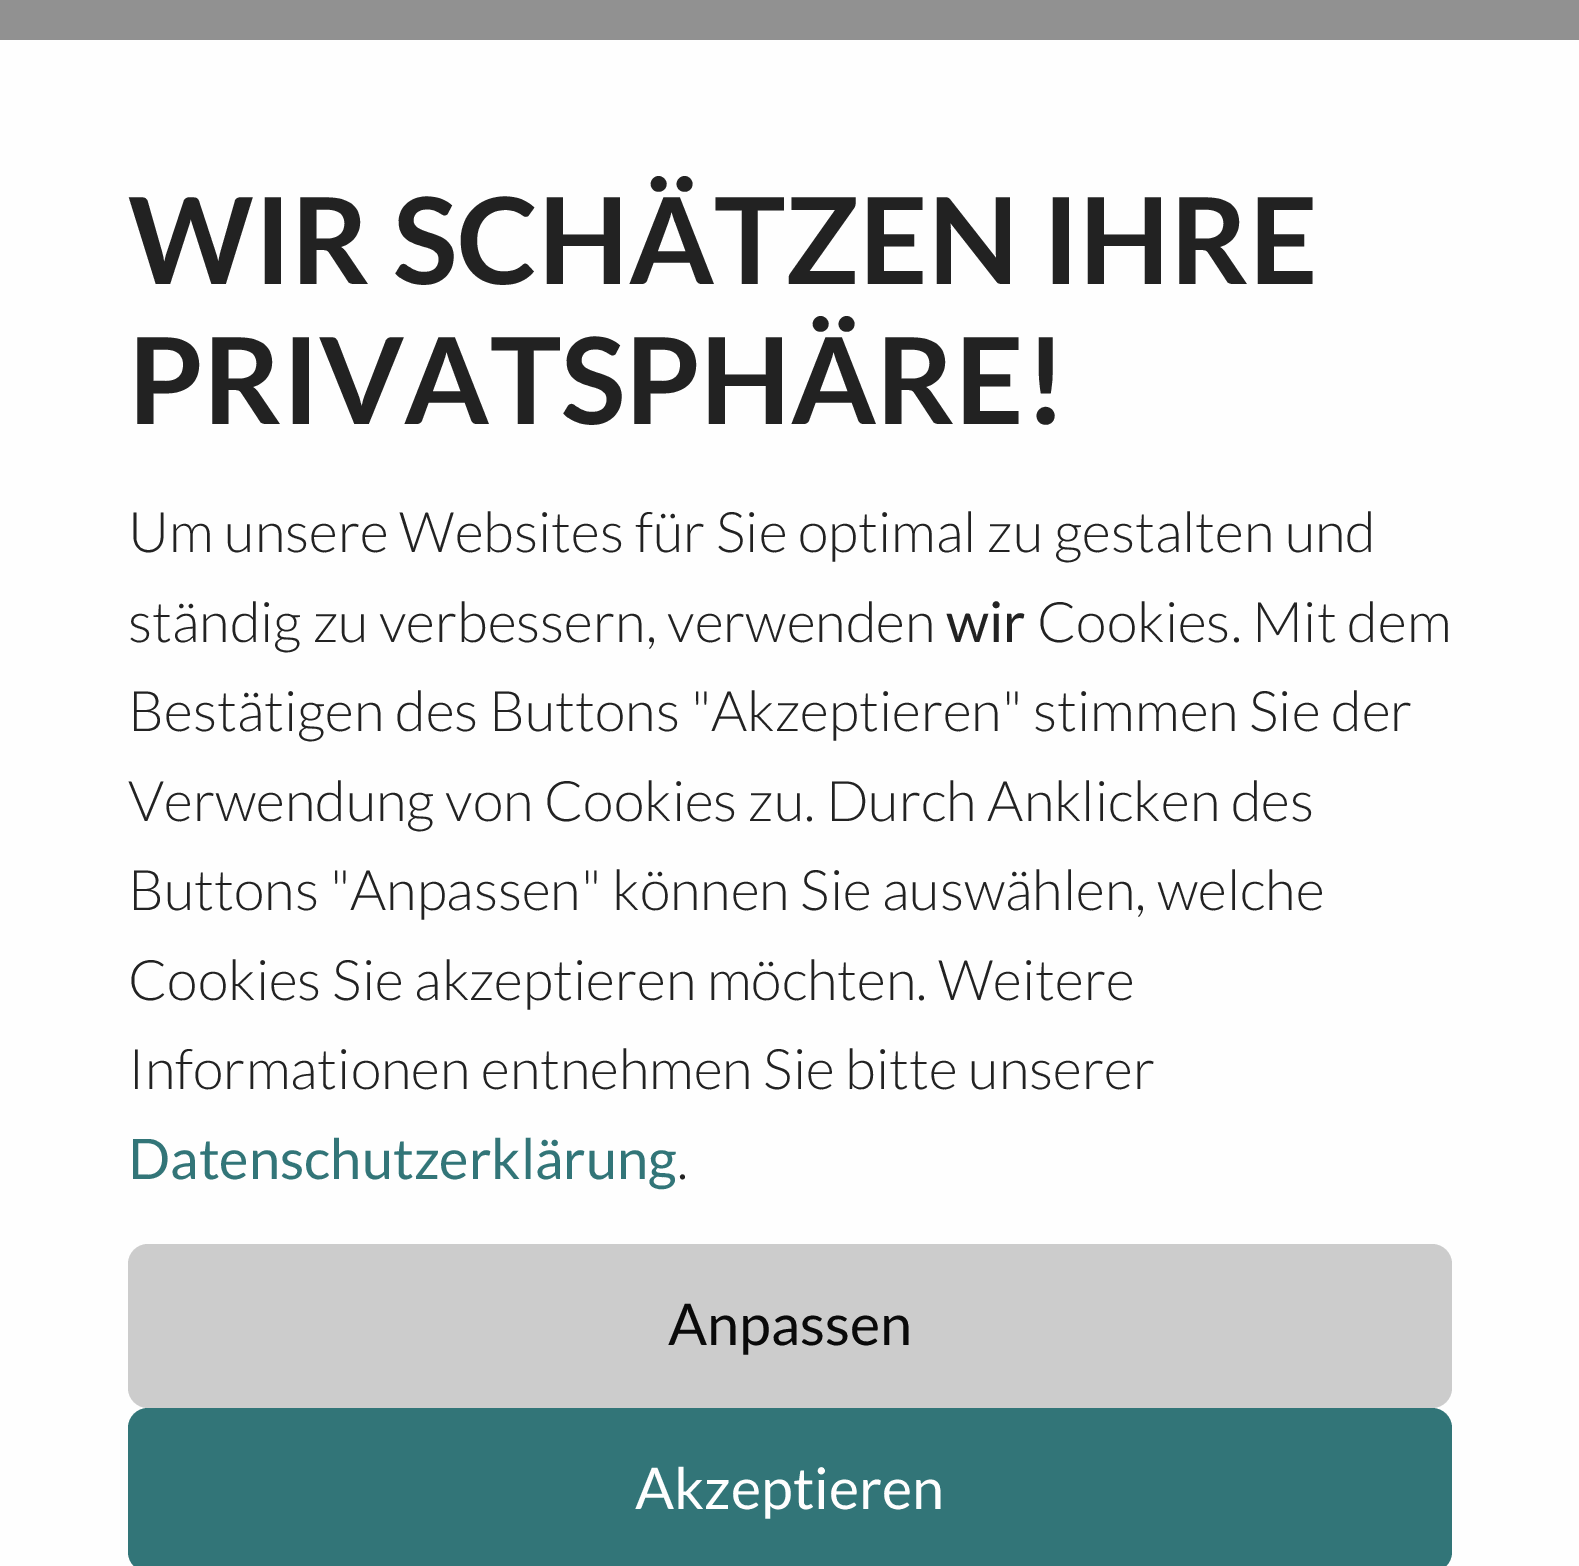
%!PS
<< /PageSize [1579 1566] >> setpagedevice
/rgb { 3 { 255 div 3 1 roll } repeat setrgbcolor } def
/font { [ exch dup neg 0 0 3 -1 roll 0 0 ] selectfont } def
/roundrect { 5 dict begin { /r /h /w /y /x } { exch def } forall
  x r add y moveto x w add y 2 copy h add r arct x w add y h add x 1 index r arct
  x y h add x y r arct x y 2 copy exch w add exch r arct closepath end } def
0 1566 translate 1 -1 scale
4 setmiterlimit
145 145 145 rgb
0 0 1579 1566 rectfill
254 254 254 rgb
0 40 1579 1526 rectfill
204 204 204 rgb
128 1244 1324 164 20 roundrect fill
50 117 120 rgb
128 1408 1324 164 20 roundrect fill
/Lato-Bold 120 font
34 34 34 rgb
128 284 moveto (WIR SCHÄTZEN IHRE) show
128 424 moveto (PRIVATSPHÄRE!) show
/Lato-Light 56 font
128 552 moveto (Um unsere Websites für Sie optimal zu gestalten und) show
128 642 moveto (ständig zu verbessern, verwenden) show
/Lato-Regular 56 font
946 642 moveto (wir) show
/Lato-Light 56 font
[
  [(Cookies. Mit dem) 1037 642]
  [(Bestätigen des Buttons "Akzeptieren" stimmen Sie der) 128 731]
  [(Verwendung von Cookies zu. Durch Anklicken des) 128 821]
  [(Buttons "Anpassen" können Sie auswählen, welche) 128 910]
  [(Cookies Sie akzeptieren möchten. Weitere) 128 1000]
  [(Informationen entnehmen Sie bitte unserer) 128 1089]
] { aload pop moveto show } forall
/Lato-Regular 56 font
50 117 120 rgb
128 1179 moveto (Datenschutzerklärung) show
/Lato-Light 56 font
34 34 34 rgb
677 1179 moveto (.) show
/Lato-Regular 57.5 font
10 10 10 rgb
668 1345 moveto (Anpassen) show
254 254 254 rgb
635 1509 moveto (Akzeptieren) show
showpage
